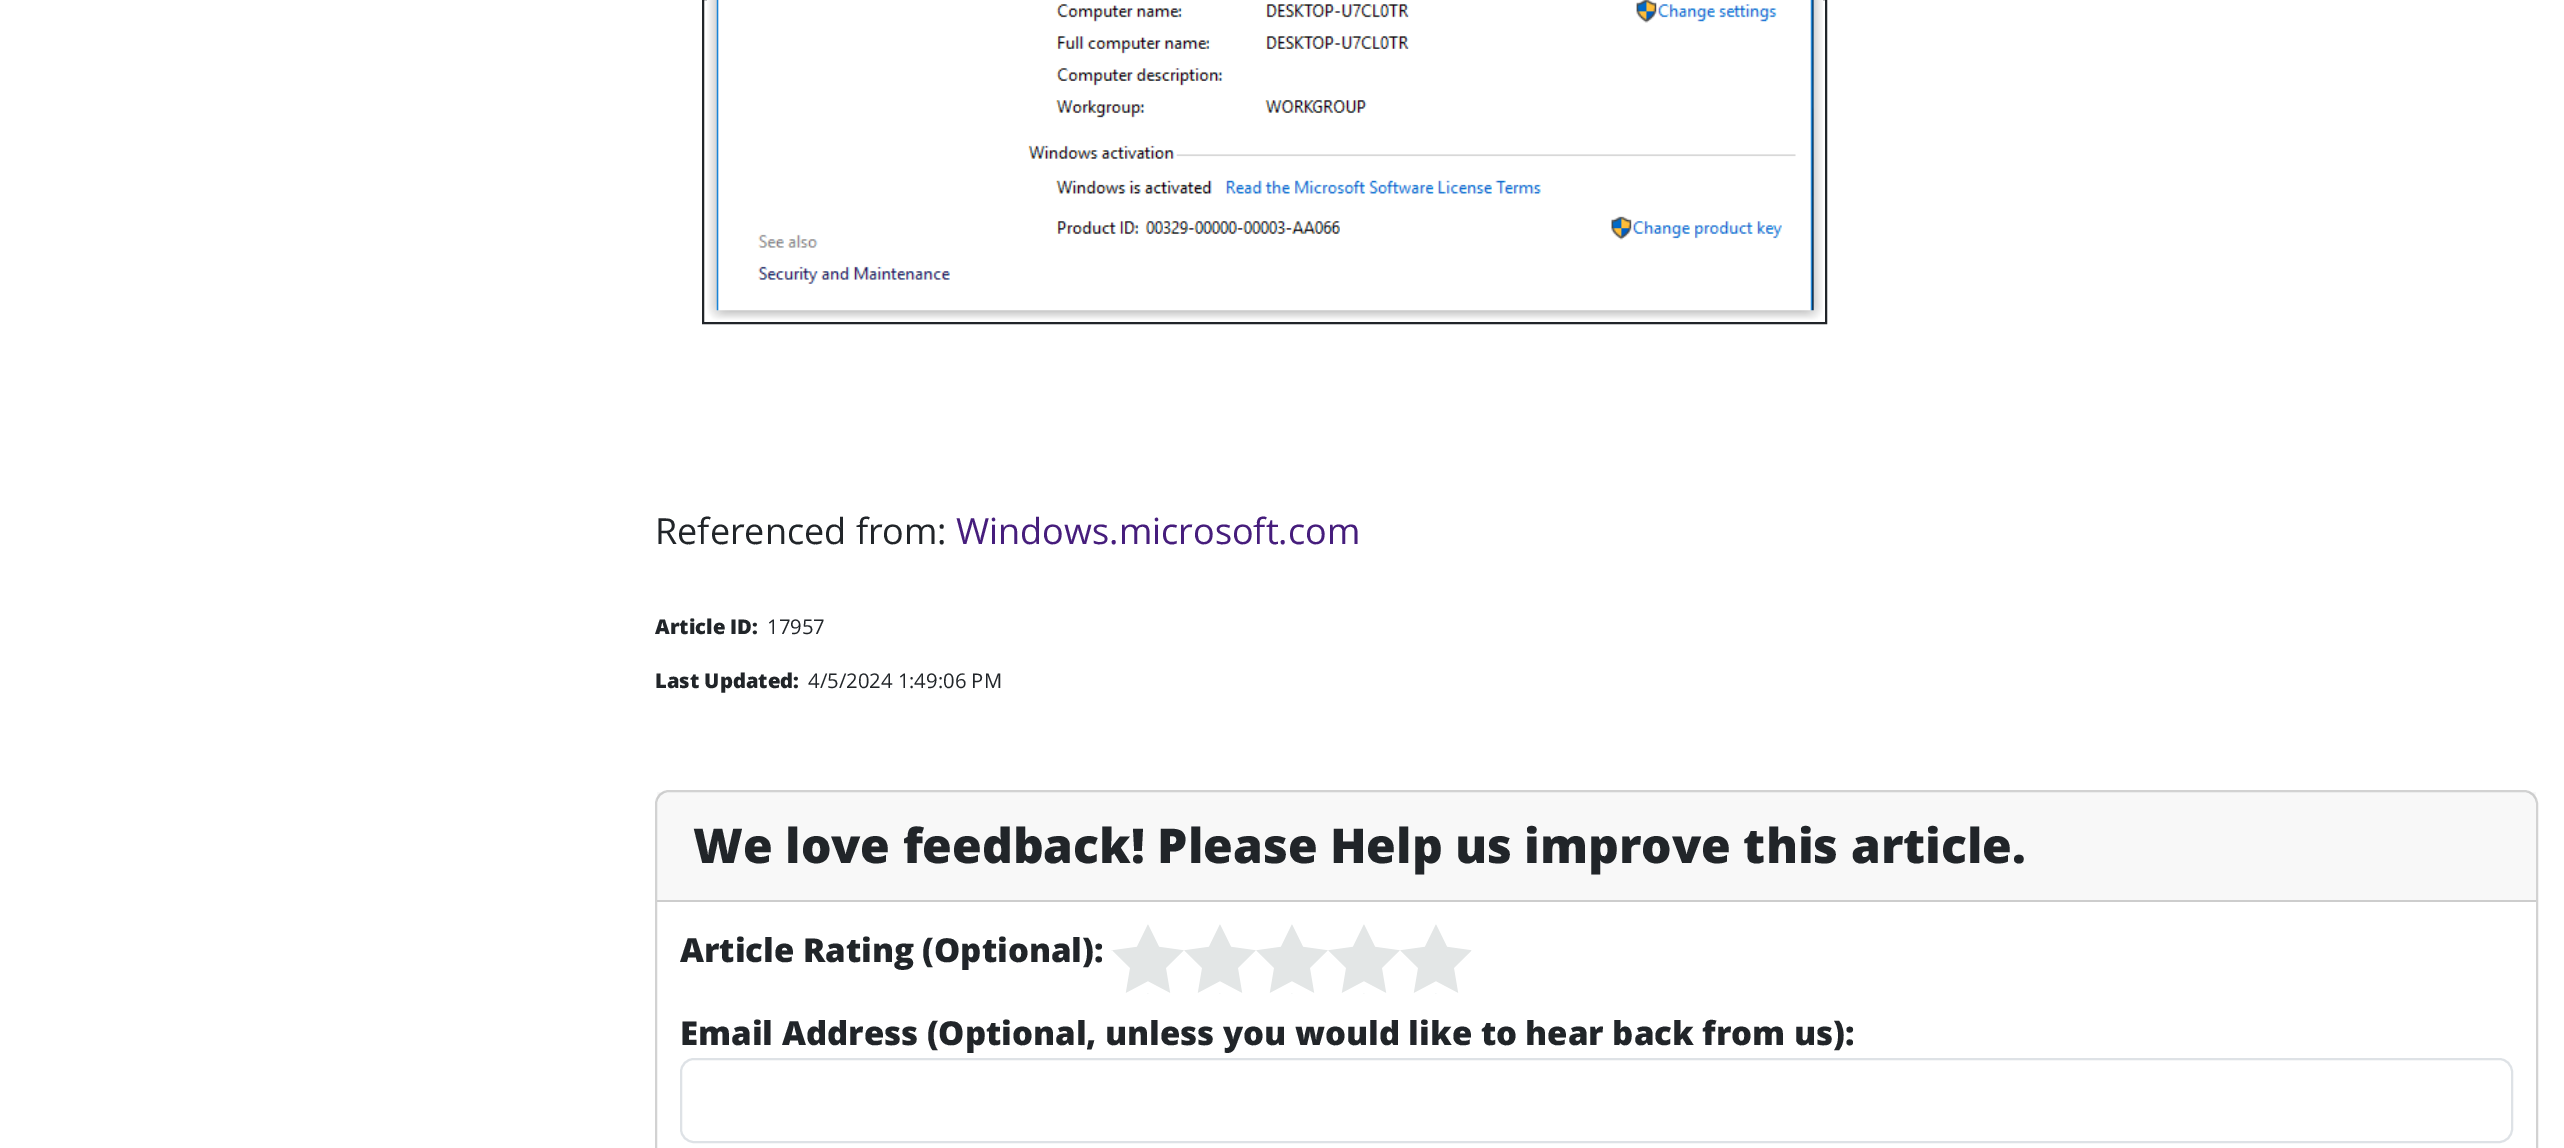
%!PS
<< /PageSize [2564 1148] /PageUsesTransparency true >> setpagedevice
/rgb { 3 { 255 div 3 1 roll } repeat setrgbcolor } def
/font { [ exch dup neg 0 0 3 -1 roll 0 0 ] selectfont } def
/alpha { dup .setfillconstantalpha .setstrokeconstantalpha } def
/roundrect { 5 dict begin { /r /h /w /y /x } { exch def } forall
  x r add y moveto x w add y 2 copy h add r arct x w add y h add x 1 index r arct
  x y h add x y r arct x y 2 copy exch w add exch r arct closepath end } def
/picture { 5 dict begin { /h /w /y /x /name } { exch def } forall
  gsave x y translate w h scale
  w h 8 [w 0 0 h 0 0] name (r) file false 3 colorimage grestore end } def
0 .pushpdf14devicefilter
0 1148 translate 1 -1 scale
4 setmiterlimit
255 255 255 rgb
0 0 2564 1148 rectfill
33 37 41 rgb
2 setlinewidth
703 -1 1123 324 rectstroke
(img/1.rgb) 707 0 1116 320 picture
210 210 210 rgb
656 791 1881 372 13 roundrect stroke
0.03 alpha
33 37 41 rgb
657 792 1879 108 rectfill
1 alpha
205 205 205 rgb
657 900 1879 2 rectfill
(img/2.rgb) 1111 924 361 70 picture
222 226 230 rgb
681 1059 1831 83 13 roundrect stroke
/OpenSans-Regular 36 font
33 37 41 rgb
655 544 moveto (Referenced from:) show
70 29 124 rgb
956 544 moveto (Windows.microsoft.com) show
/OpenSans-ExtraBold 20.25 font
33 37 41 rgb
655 634 moveto (Article ID:) show
/OpenSans-Regular 20.25 font
767 634 moveto (17957) show
/OpenSans-ExtraBold 20.25 font
655 688 moveto (Last Updated:) show
/OpenSans-Regular 20.25 font
808 688 moveto (4/5/2024 1:49:06 PM) show
/OpenSans-ExtraBold 48 font
693 863 moveto (We love feedback! Please Help us improve this article.) show
/OpenSans-ExtraBold 33 font
680 962 moveto (Article Rating \(Optional\):) show
680 1045 moveto (Email Address \(Optional, unless you would like to hear back from us\):) show
.poppdf14devicefilter showpage
